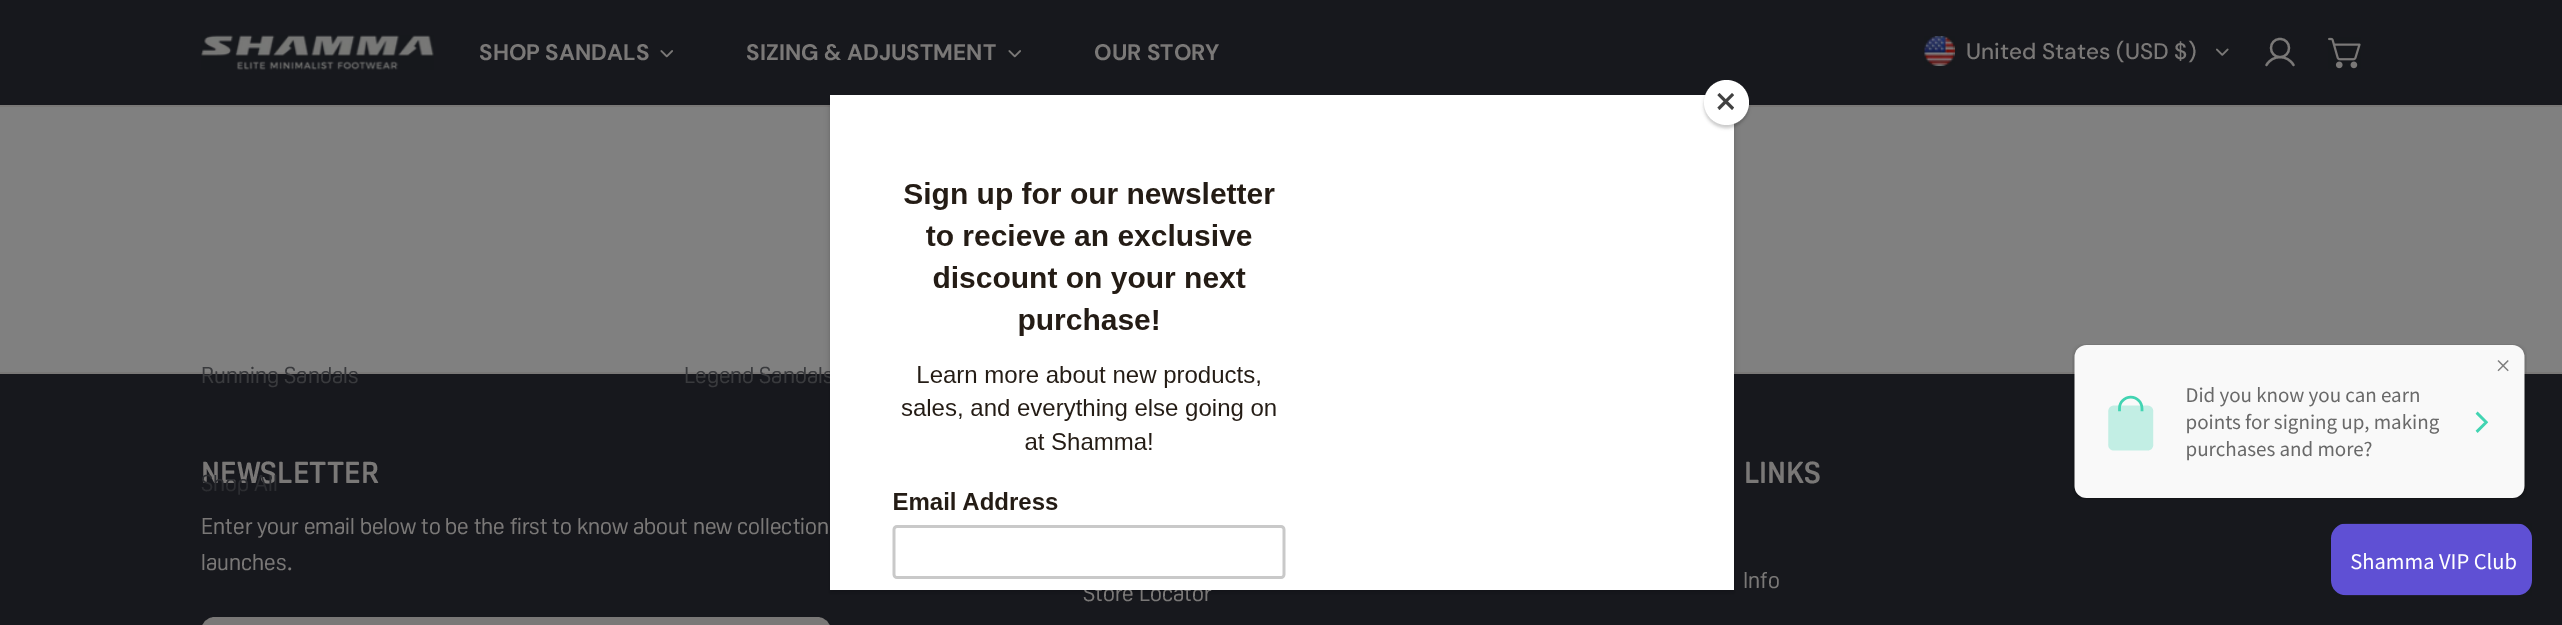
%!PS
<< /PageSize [2562 625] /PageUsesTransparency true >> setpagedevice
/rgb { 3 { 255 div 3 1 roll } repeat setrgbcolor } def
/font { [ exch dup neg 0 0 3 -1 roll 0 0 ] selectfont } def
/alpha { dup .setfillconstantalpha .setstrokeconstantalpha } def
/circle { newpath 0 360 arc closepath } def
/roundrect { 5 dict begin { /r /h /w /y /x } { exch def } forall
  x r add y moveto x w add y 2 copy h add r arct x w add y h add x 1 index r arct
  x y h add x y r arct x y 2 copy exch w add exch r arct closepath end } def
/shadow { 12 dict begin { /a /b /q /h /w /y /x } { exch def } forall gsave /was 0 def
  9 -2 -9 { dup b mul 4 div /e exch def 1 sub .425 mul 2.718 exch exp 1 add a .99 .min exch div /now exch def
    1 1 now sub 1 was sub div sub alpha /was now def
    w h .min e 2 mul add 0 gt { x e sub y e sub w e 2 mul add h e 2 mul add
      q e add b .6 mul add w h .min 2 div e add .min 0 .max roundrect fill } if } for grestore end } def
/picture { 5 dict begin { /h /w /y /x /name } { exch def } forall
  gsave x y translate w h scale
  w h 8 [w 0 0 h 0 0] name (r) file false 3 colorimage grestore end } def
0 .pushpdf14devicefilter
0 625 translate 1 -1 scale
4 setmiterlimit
128 128 128 rgb
0 0 2562 625 rectfill
23 24 29 rgb
0 0 2562 105 rectfill
122 120 119 rgb
0 105 2562 2 rectfill
(img/1.rgb) 201 35 233 35 picture
(img/2.rgb) 1924 36 31 30 picture
(img/3.rgb) 2216 48 13 8 picture
2.2 setlinewidth
1 setlinecap
1 setlinejoin
2280 57 moveto 2292 57 2292 39 2280 39 curveto 2268 39 2268 57 2280 57 curveto closepath 2266.5 65 moveto 2272.5 54.5 2287.5 54.5 2293.5 65 curveto stroke
(img/4.rgb) 2328 37 33 32 picture
(img/5.rgb) 660 50 13 8 picture
(img/5.rgb) 1008 50 13 8 picture
0 372 2562 2 rectfill
23 24 29 rgb
0 374 2562 251 rectfill
122 120 119 rgb
202 618 628 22 13 roundrect gsave fill grestore
2 setlinewidth
0 setlinecap
0 setlinejoin
stroke
0 0 0 rgb
830 98 904 495 0 3 0.2 shadow
(img/7.rgb) 2072 344 455 155 picture
(img/8.rgb) 2330 523 202 73 picture
/DMSans-Medium 22.5 font
122 120 119 rgb
1966 59 moveto (United States \(USD $\)) show
/DMSans-Bold 22.5 font
479 60 moveto (SHOP SANDALS) show
/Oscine-Regular 22.5 font
57 58 61 rgb
201 383 moveto (Running Sandals) show
684 383 moveto (Legend Sandals) show
/DMSans-Bold 22.5 font
122 120 119 rgb
746 60 moveto (SIZING & ADJUSTMENT) show
1094 60 moveto (OUR STORY) show
/Oscine-Bold 29.75 font
201 483 moveto (NEWSLETTER) show
/Oscine-Regular 22.5 font
44 45 49 rgb
201 491 moveto (Shop All) show
122 120 119 rgb
201 534 moveto (Enter your email below to be the first to know about new collection) show
201 570 moveto (launches.) show
/Oscine-Bold 29.75 font
1744 483 moveto (LINKS) show
/Oscine-Regular 22.5 font
1743 588 moveto (Info) show
1083 601 moveto (Store Locator) show
(img/6.rgb) 830 95 904 495 picture
0 0 0 rgb
1704 83 45 45 22.5 1.5 0.2 shadow
255 255 255 rgb
1726.5 102.5 22.5 circle fill
65 65 65 rgb
1732 93 moveto 1734 95 lineto 1719.5 110 lineto 1717.5 107.5 lineto closepath fill
1717.5 95 moveto 1719.5 93 lineto 1734 107.5 lineto 1732 110 lineto closepath fill
.poppdf14devicefilter showpage
